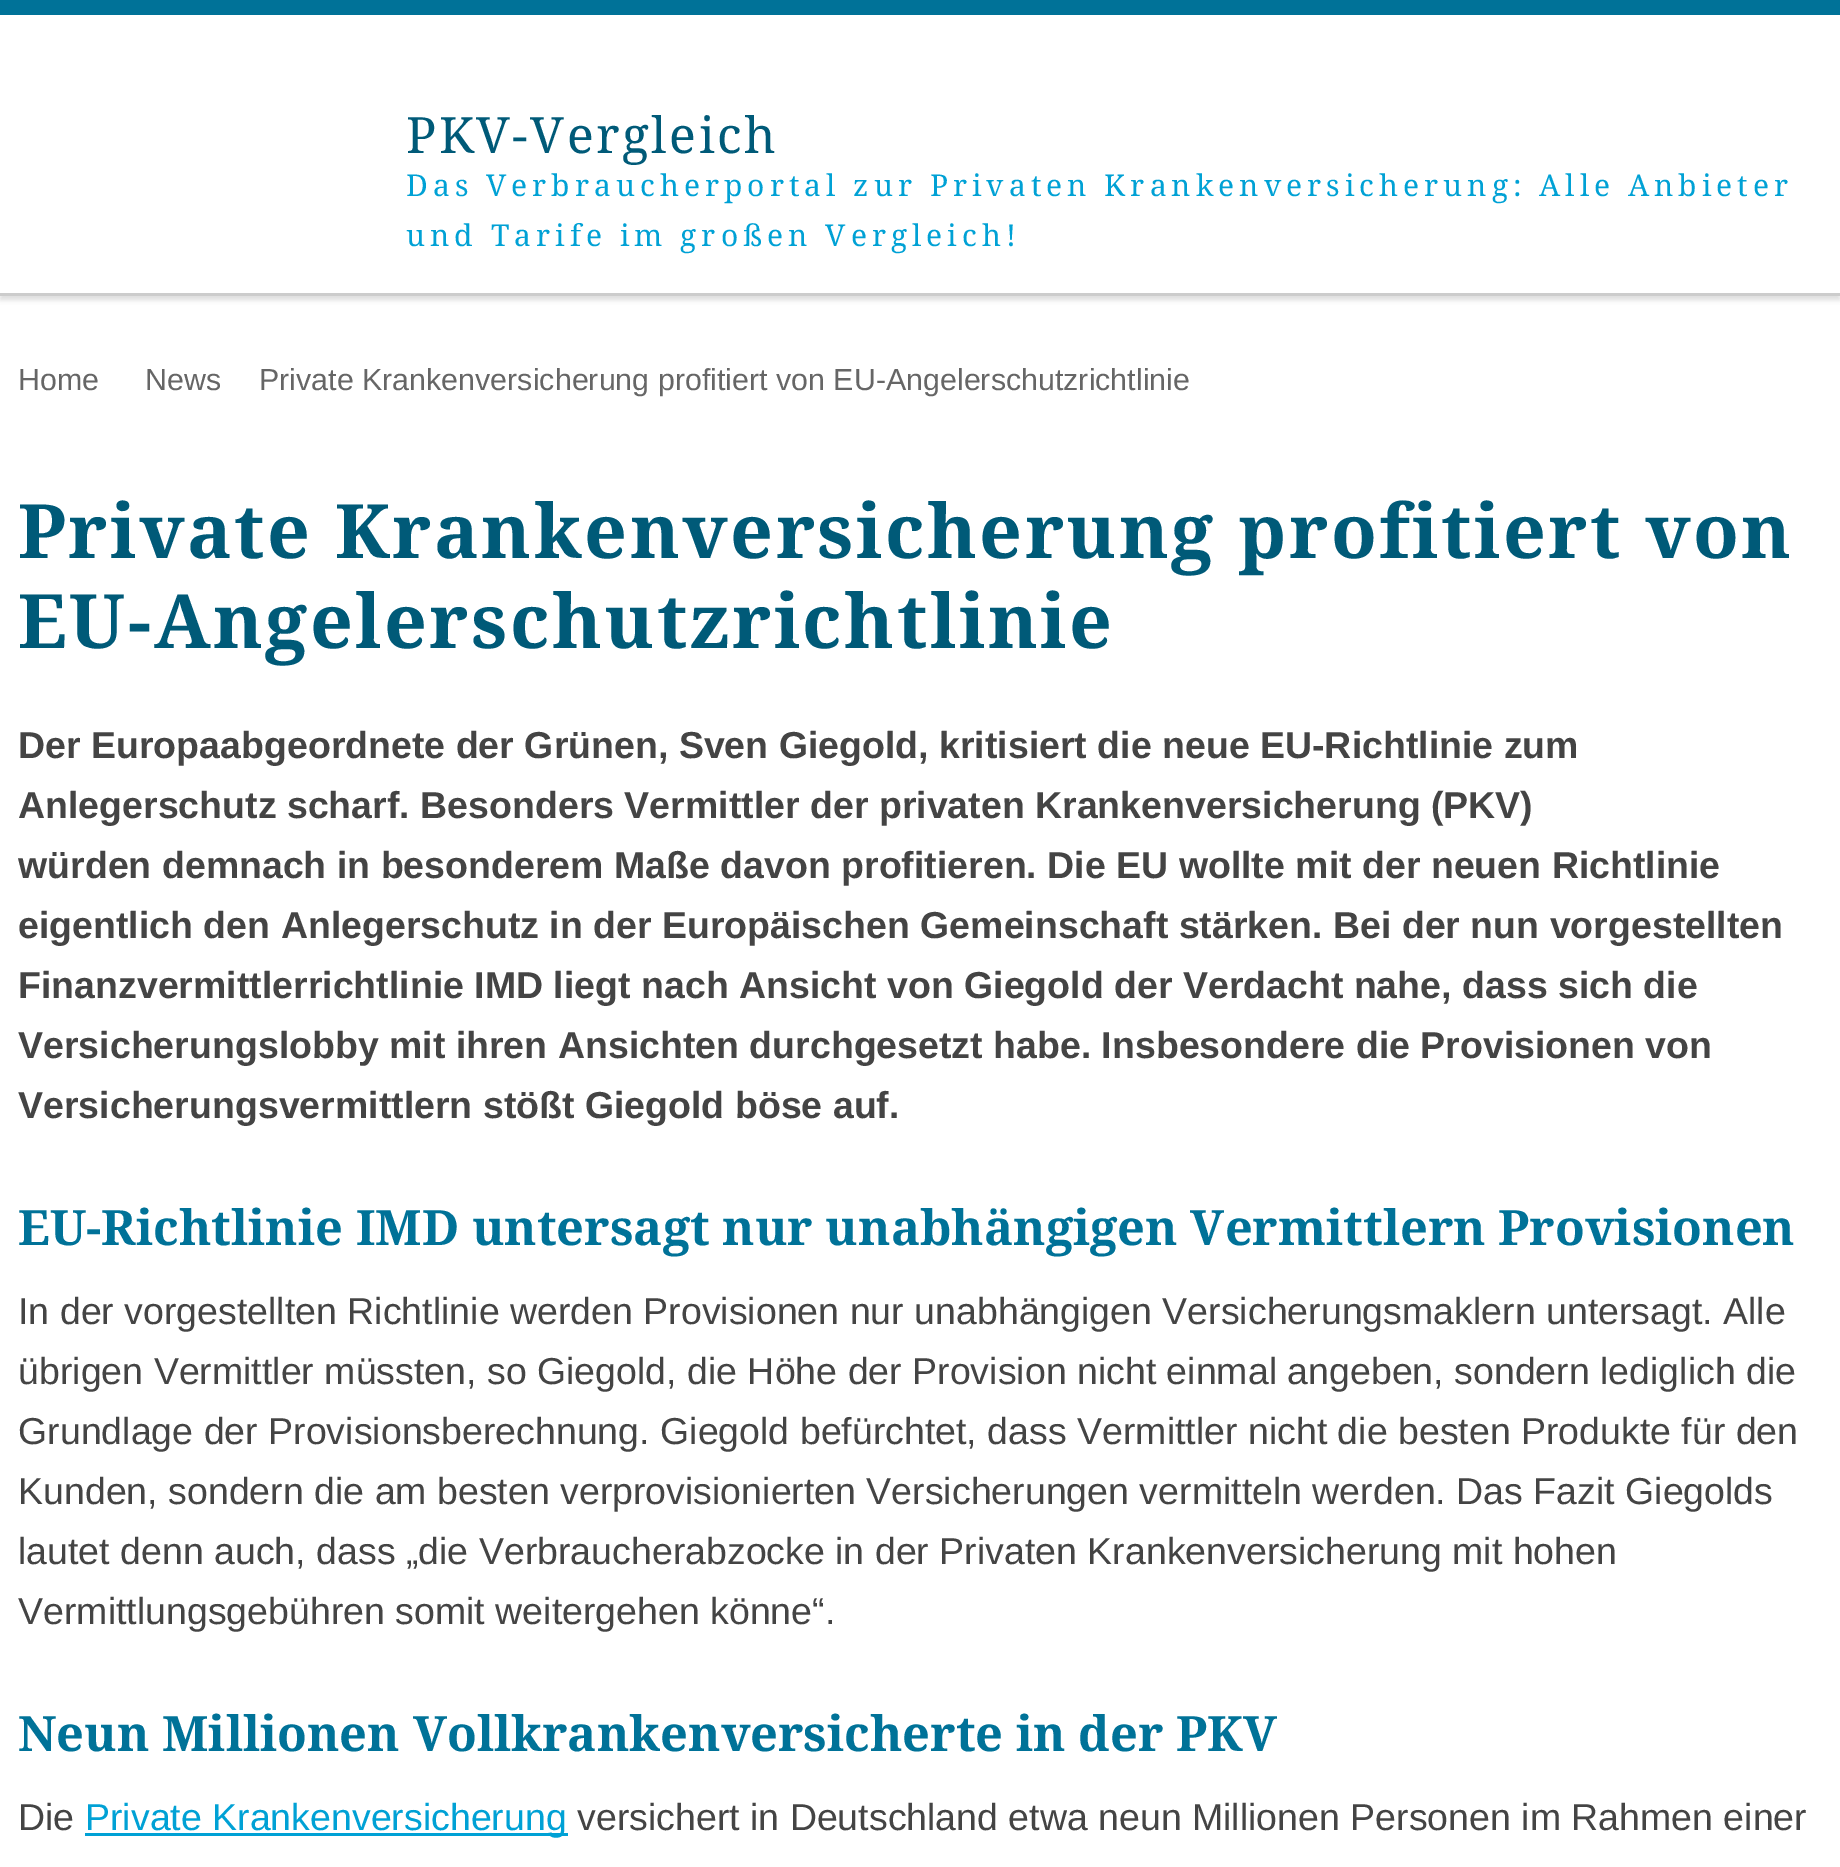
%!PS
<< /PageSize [1840 1867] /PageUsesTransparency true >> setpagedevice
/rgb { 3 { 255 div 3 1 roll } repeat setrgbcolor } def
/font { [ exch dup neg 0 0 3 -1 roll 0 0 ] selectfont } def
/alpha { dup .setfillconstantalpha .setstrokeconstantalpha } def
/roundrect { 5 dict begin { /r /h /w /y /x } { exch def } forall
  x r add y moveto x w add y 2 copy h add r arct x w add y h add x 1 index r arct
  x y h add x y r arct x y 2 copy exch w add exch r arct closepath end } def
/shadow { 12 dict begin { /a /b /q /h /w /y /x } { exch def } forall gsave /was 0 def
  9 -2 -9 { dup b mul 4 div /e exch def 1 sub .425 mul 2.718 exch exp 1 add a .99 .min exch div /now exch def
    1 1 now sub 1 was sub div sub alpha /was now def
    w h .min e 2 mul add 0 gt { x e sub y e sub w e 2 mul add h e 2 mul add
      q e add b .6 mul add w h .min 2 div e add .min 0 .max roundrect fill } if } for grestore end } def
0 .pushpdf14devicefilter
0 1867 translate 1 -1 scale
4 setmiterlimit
255 255 255 rgb
0 0 1840 1867 rectfill
gsave
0 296 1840 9 rectclip
221 221 221 rgb
0 -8 1840 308 0 2.5 1 shadow
grestore
[
  [0 0 1840 15 0 114 152]
  [0 293 1840 3 204 204 204]
  [85 1833 483 3 0 161 213]
] { aload pop rgb rectfill } forall
/NotoSerif-Regular 50 font
0 90 120 rgb
406 153 moveto 2.5 0 (PKV-Vergleich) ashow
/NotoSerif-Regular 30 font
0 161 213 rgb
406 196 moveto 5 0 (Das Verbraucherportal zur Privaten Krankenversicherung: Alle Anbieter) ashow
406 246 moveto 5 0 (und Tarife im großen Vergleich!) ashow
/LiberationSans-Regular 30.4 font
102 102 102 rgb
[
  [(Home) 18 390]
  [(News) 145 390]
  [(Private Krankenversicherung profitiert von EU-Angelerschutzrichtlinie) 259 390]
] { aload pop moveto show } forall
/NotoSerif-Bold 75 font
0 90 120 rgb
18 558 moveto 2.5 0 (Private Krankenversicherung profitiert von) ashow
18 648 moveto 2.5 0 (EU-Angelerschutzrichtlinie) ashow
/LiberationSans-Bold 37.5 font
68 68 68 rgb
[
  [(Der Europaabgeordnete der Grünen, Sven Giegold, kritisiert die neue EU-Richtlinie zum) 18 758]
  [(Anlegerschutz scharf. Besonders Vermittler der privaten Krankenversicherung \(PKV\)) 18 818]
  [(würden demnach in besonderem Maße davon profitieren. Die EU wollte mit der neuen Richtlinie) 18 878]
  [(eigentlich den Anlegerschutz in der Europäischen Gemeinschaft stärken. Bei der nun vorgestellten) 18 938]
  [(Finanzvermittlerrichtlinie IMD liegt nach Ansicht von Giegold der Verdacht nahe, dass sich die) 18 998]
  [(Versicherungslobby mit ihren Ansichten durchgesetzt habe. Insbesondere die Provisionen von) 18 1058]
  [(Versicherungsvermittlern stößt Giegold böse auf.) 18 1118]
] { aload pop moveto show } forall
/NotoSerif-Bold 48.75 font
0 114 152 rgb
18 1245 moveto (EU-Richtlinie IMD untersagt nur unabhängigen Vermittlern Provisionen) show
/LiberationSans-Regular 37.5 font
68 68 68 rgb
[
  [(In der vorgestellten Richtlinie werden Provisionen nur unabhängigen Versicherungsmaklern untersagt. Alle) 18 1324]
  [(übrigen Vermittler müssten, so Giegold, die Höhe der Provision nicht einmal angeben, sondern lediglich die) 18 1384]
  [(Grundlage der Provisionsberechnung. Giegold befürchtet, dass Vermittler nicht die besten Produkte für den) 18 1444]
  [(Kunden, sondern die am besten verprovisionierten Versicherungen vermitteln werden. Das Fazit Giegolds) 18 1504]
  [(lautet denn auch, dass „die Verbraucherabzocke in der Privaten Krankenversicherung mit hohen) 18 1564]
  [(Vermittlungsgebühren somit weitergehen könne“.) 18 1624]
] { aload pop moveto show } forall
/NotoSerif-Bold 48.75 font
0 114 152 rgb
18 1751 moveto (Neun Millionen Vollkrankenversicherte in der PKV) show
/LiberationSans-Regular 37.5 font
68 68 68 rgb
18 1830 moveto (Die) show
0 161 213 rgb
85 1830 moveto (Private Krankenversicherung) show
68 68 68 rgb
577 1830 moveto (versichert in Deutschland etwa neun Millionen Personen im Rahmen einer) show
.poppdf14devicefilter showpage
